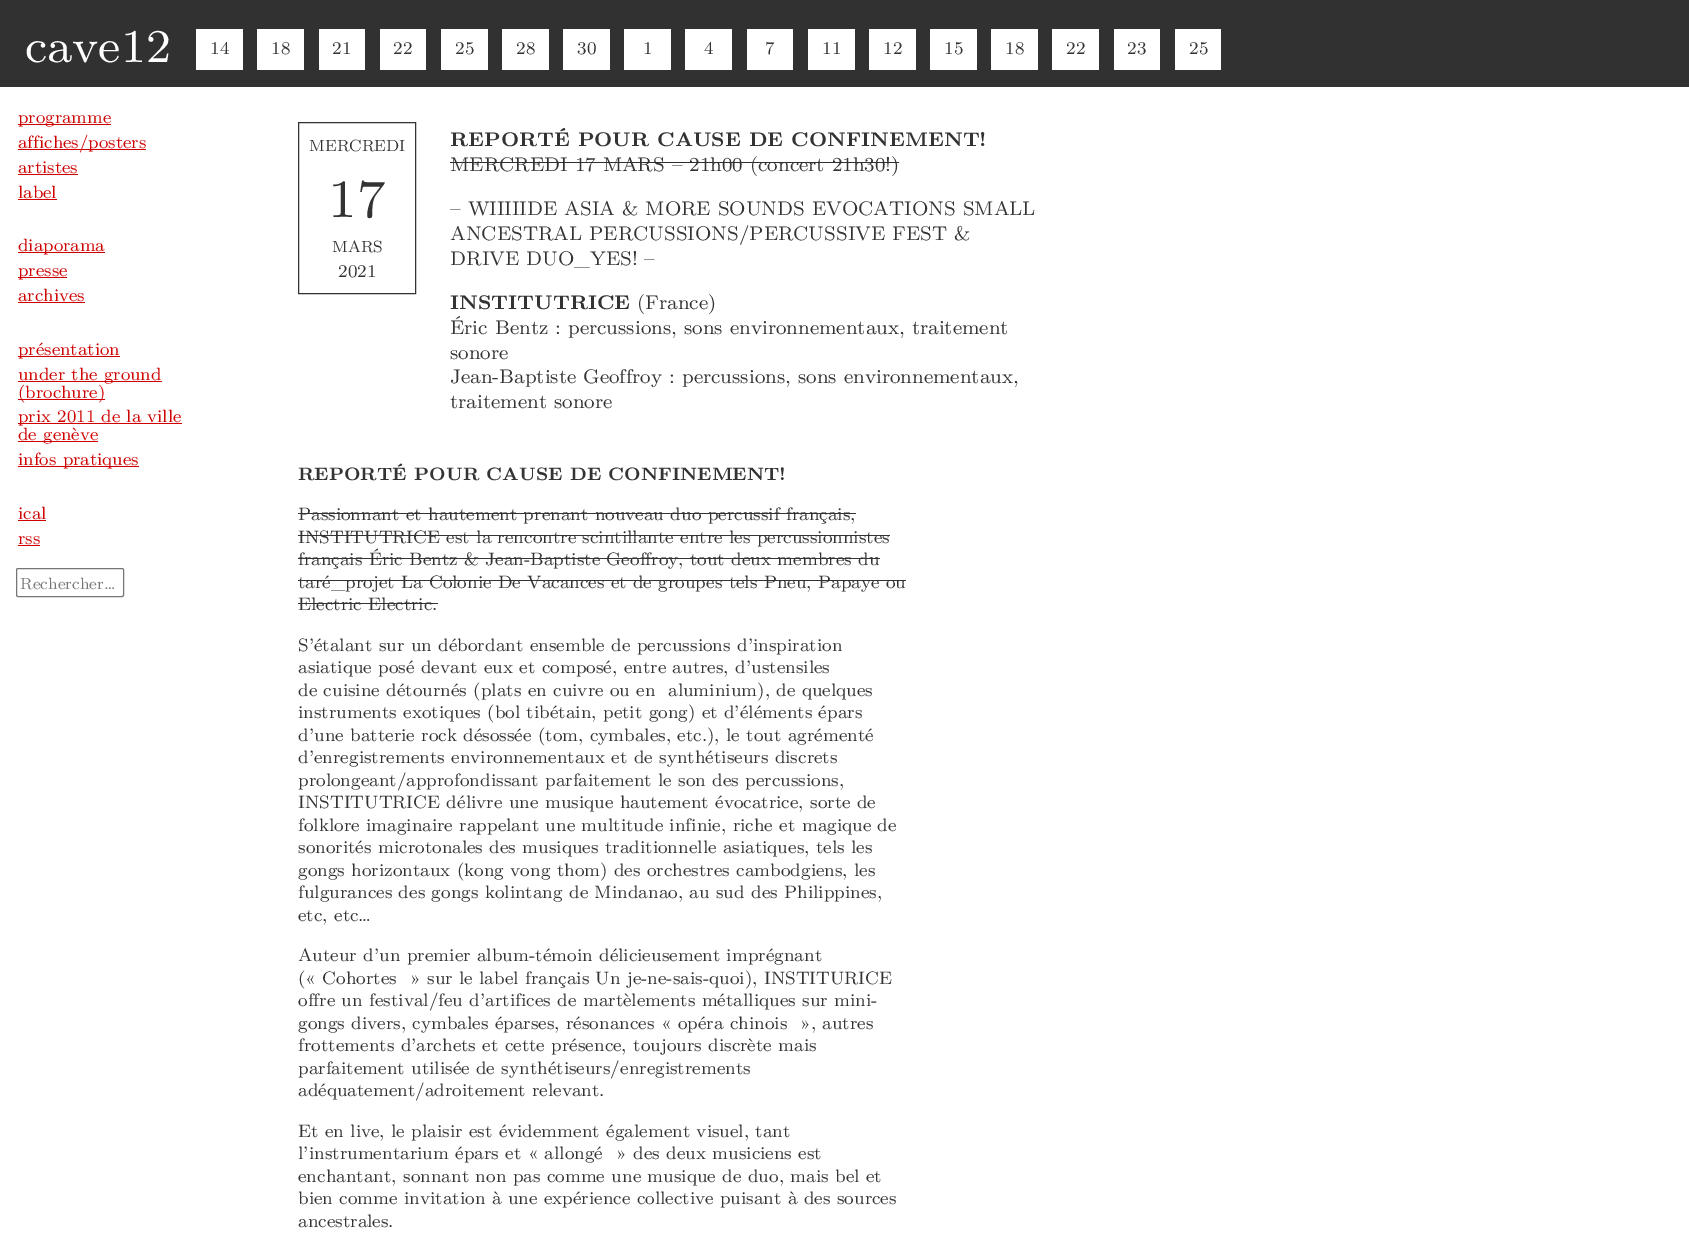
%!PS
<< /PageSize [1689 1256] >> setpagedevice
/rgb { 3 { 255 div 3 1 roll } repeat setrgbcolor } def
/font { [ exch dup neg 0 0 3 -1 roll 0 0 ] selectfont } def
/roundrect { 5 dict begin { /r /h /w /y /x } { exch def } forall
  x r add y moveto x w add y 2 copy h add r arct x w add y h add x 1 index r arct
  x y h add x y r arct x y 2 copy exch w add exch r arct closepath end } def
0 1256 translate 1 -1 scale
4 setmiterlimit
255 255 255 rgb
0 0 1689 1256 rectfill
[
  [0 0 1689 87 49 49 49]
  [196 29 47 41 255 255 255]
  [257 29 47 41 255 255 255]
  [319 29 46 41 255 255 255]
  [380 29 46 41 255 255 255]
  [441 29 47 41 255 255 255]
  [502 29 47 41 255 255 255]
  [563 29 47 41 255 255 255]
  [624 29 47 41 255 255 255]
  [685 29 47 41 255 255 255]
  [747 29 46 41 255 255 255]
  [808 29 47 41 255 255 255]
  [869 29 47 41 255 255 255]
  [930 29 47 41 255 255 255]
  [991 29 47 41 255 255 255]
  [1052 29 47 41 255 255 255]
  [1114 29 46 41 255 255 255]
  [1175 29 46 41 255 255 255]
  [18 124 93 1 206 0 0]
  [18 149 128 1 206 0 0]
  [18 174 60 1 206 0 0]
  [18 199 39 1 206 0 0]
  [18 252 87 1 206 0 0]
  [18 277 49 1 206 0 0]
  [18 302 67 1 206 0 0]
  [18 356 102 1 206 0 0]
  [18 381 144 1 206 0 0]
  [18 399 87 1 206 0 0]
  [18 423 164 1 206 0 0]
  [18 441 80 1 206 0 0]
  [18 466 121 1 206 0 0]
  [18 520 28 1 206 0 0]
  [18 545 22 1 206 0 0]
] { aload pop rgb rectfill } forall
118 118 118 rgb
16.5 568.5 107 28 1.5 roundrect stroke
51 51 51 rgb
298.5 122.5 117 171 rectstroke
[
  [298 513 558 1 51 51 51]
  [298 535 592 1 51 51 51]
  [298 558 582 1 51 51 51]
  [298 580 608 1 51 51 51]
  [298 603 140 1 51 51 51]
] { aload pop rgb rectfill } forall
/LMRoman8-Regular 47 font
255 255 255 rgb
25 62 moveto (cave12) show
/LMRoman8-Regular 18 font
51 51 51 rgb
[
  [(14) 210 54]
  [(18) 271 54]
  [(21) 332 54]
  [(22) 393 54]
  [(25) 455 54]
  [(28) 516 54]
  [(30) 577 54]
  [(1) 643 54]
  [(4) 704 54]
  [(7) 765 54]
  [(11) 822 54]
  [(12) 883 54]
  [(15) 944 54]
  [(18) 1005 54]
  [(22) 1066 54]
  [(23) 1127 54]
  [(25) 1189 54]
] { aload pop moveto show } forall
/LMRoman8-Regular 17.75 font
206 0 0 rgb
[
  [(programme) 18 123]
  [(affiches/posters) 18 148]
  [(artistes) 18 173]
  [(label) 18 198]
  [(diaporama) 18 251]
  [(presse) 18 276]
  [(archives) 18 301]
  [(présentation) 18 355]
  [(under the ground) 18 380]
  [(\(brochure\)) 18 398]
  [(prix 2011 de la ville) 18 422]
  [(de genève) 18 440]
  [(infos pratiques) 18 465]
  [(ical) 18 519]
  [(rss) 18 544]
] { aload pop moveto show } forall
/LMRoman8-Regular 16.25 font
117 117 117 rgb
20 589 moveto (Rechercher…) show
51 51 51 rgb
309 151 moveto (MERCREDI) show
/LMRoman8-Regular 54 font
328 217 moveto (17) show
/LMRoman8-Regular 16.25 font
332 252 moveto (MARS) show
/LMRoman8-Regular 18 font
338 277 moveto (2021) show
/LMRoman8-Bold 19.8 font
450 146 moveto (REPORTÉ POUR CAUSE DE CONFINEMENT!) show
/LMRoman8-Regular 19.8 font
450 171 moveto (MERCREDI 17 MARS – 21h00 \(concert 21h30!\)) show
48 48 48 rgb
450 162 449 1 rectfill
51 51 51 rgb
[
  [(– WIIIIIDE ASIA & MORE SOUNDS EVOCATIONS SMALL) 450 215]
  [(ANCESTRAL PERCUSSIONS/PERCUSSIVE FEST &) 450 240]
  [(DRIVE DUO_YES! –) 450 265]
] { aload pop moveto show } forall
/LMRoman8-Bold 19.8 font
450 309 moveto (INSTITUTRICE) show
/LMRoman8-Regular 19.8 font
[
  [(\(France\)) 637 309]
  [(Éric Bentz : percussions, sons environnementaux, traitement) 450 334]
  [(sonore) 450 359]
  [(Jean-Baptiste Geoffroy : percussions, sons environnementaux,) 450 383]
  [(traitement sonore) 450 408]
] { aload pop moveto show } forall
/LMRoman8-Bold 18 font
298 480 moveto (REPORTÉ POUR CAUSE DE CONFINEMENT!) show
/LMRoman8-Regular 18 font
[
  [(Passionnant et hautement prenant nouveau duo percussif français,) 298 520]
  [(INSTITUTRICE est la rencontre scintillante entre les percussionnistes) 298 543]
  [(français Éric Bentz & Jean-Baptiste Geoffroy, tout deux membres du) 298 565]
  [(taré_projet La Colonie De Vacances et de groupes tels Pneu, Papaye ou) 298 588]
  [(Electric Electric.) 298 610]
  [(S’étalant sur un débordant ensemble de percussions d’inspiration) 298 651]
  [(asiatique posé devant eux et composé, entre autres, d’ustensiles) 298 673]
  [(de cuisine détournés \(plats en cuivre ou en) 298 696]
  [(aluminium\), de quelques) 668 696]
  [(instruments exotiques \(bol tibétain, petit gong\) et d’éléments épars) 298 718]
  [(d’une batterie rock désossée \(tom, cymbales, etc.\), le tout agrémenté) 298 741]
  [(d’enregistrements environnementaux et de synthétiseurs discrets) 298 763]
  [(prolongeant/approfondissant parfaitement le son des percussions,) 298 786]
  [(INSTITUTRICE délivre une musique hautement évocatrice, sorte de) 298 808]
  [(folklore imaginaire rappelant une multitude infinie, riche et magique de) 298 831]
  [(sonorités microtonales des musiques traditionnelle asiatiques, tels les) 298 853]
  [(gongs horizontaux \(kong vong thom\) des orchestres cambodgiens, les) 298 876]
  [(fulgurances des gongs kolintang de Mindanao, au sud des Philippines,) 298 898]
  [(etc, etc…) 298 921]
  [(Auteur d’un premier album-témoin délicieusement imprégnant) 298 961]
  [(\(« Cohortes) 298 984]
  [(» sur le label français Un je-ne-sais-quoi\), INSTITURICE) 410 984]
  [(offre un festival/feu d’artifices de martèlements métalliques sur mini-) 298 1006]
  [(gongs divers, cymbales éparses, résonances « opéra chinois) 298 1029]
  [(», autres) 800 1029]
  [(frottements d’archets et cette présence, toujours discrète mais) 298 1051]
  [(parfaitement utilisée de synthétiseurs/enregistrements) 298 1074]
  [(adéquatement/adroitement relevant.) 298 1096]
  [(Et en live, le plaisir est évidemment également visuel, tant) 298 1137]
  [(l’instrumentarium épars et « allongé) 298 1159]
  [(» des deux musiciens est) 616 1159]
  [(enchantant, sonnant non pas comme une musique de duo, mais bel et) 298 1182]
  [(bien comme invitation à une expérience collective puisant à des sources) 298 1204]
  [(ancestrales.) 298 1227]
] { aload pop moveto show } forall
showpage
